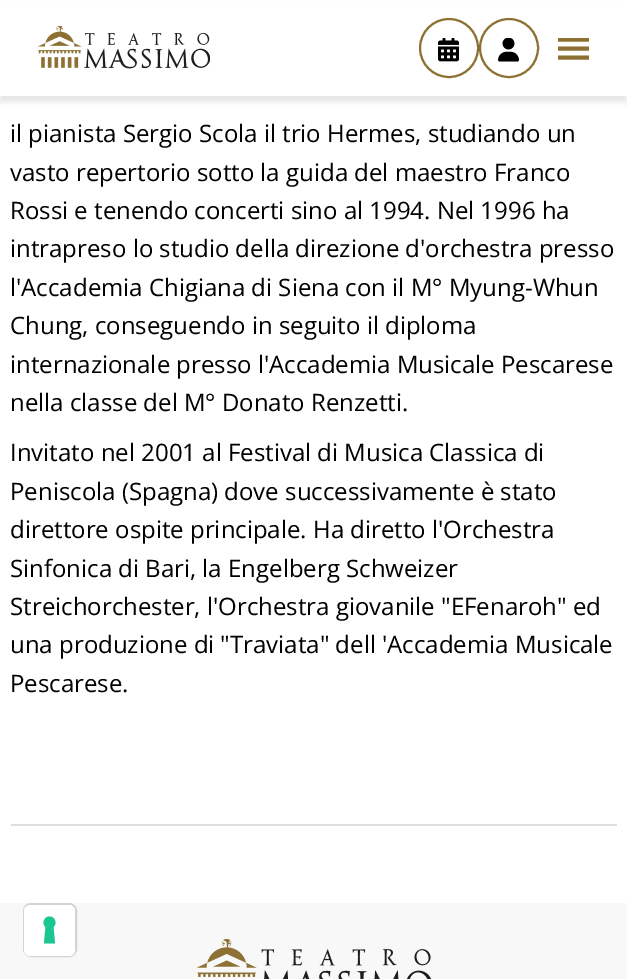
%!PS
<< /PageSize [627 979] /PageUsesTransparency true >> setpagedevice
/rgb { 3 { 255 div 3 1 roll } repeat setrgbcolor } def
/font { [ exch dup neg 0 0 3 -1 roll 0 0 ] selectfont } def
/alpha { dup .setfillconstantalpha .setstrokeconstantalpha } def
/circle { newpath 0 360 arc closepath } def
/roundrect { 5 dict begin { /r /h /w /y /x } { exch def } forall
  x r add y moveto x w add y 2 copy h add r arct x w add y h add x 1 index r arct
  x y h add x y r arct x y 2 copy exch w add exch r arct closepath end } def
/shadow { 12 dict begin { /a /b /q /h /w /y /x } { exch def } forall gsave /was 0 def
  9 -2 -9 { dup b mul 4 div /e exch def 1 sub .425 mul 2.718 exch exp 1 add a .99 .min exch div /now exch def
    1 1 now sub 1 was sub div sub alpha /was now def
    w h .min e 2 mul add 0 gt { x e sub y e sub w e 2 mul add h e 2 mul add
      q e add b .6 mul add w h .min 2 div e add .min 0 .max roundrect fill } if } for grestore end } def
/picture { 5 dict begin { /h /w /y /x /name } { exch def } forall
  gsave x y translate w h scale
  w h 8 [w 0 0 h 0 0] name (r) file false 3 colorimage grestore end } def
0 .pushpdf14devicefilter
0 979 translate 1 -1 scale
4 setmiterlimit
255 255 255 rgb
0 0 627 979 rectfill
0 0 0 rgb
0 6 627 96 0 3 0.1 shadow
255 255 255 rgb
0 2 627 94 rectfill
(img/1.rgb) 38 26 172 43 picture
141 113 52 rgb
2 setlinewidth
449 48 29 circle stroke
(img/2.rgb) 438 38 21 24 picture
509 48 29 circle stroke
(img/3.rgb) 498 38 21 24 picture
gsave
558 38 32 22 rectclip
3.9 setlinewidth
558 39.5 moveto 589 39.5 lineto 558 48.5 moveto 589 48.5 lineto 558 57.5 moveto 589 57.5 lineto stroke
grestore
223 223 223 rgb
11 824 606 2 rectfill
248 248 248 rgb
0 903 627 76 rectfill
(img/4.rgb) 197 939 234 40 picture
211 211 211 rgb
24 904 52 52 7 roundrect stroke
255 255 255 rgb
24 905 51 51 6 roundrect fill
28 198 145 rgb
49.5 916.5 moveto 55 916.5 57.5 923.5 53.5 927 curveto 55 943.5 lineto 44 943.5 lineto 45.5 927 lineto 41.5 923.5 44 916.5 49.5 916.5 curveto closepath eofill
/OpenSans-Regular 24 font
0 0 0 rgb
[
  [(il pianista Sergio Scola il trio Hermes, studiando un) 10 142]
  [(vasto repertorio sotto la guida del maestro Franco) 10 181]
  [(Rossi e tenendo concerti sino al 1994. Nel 1996 ha) 10 219]
  [(intrapreso lo studio della direzione d'orchestra presso) 10 257]
  [(l'Accademia Chigiana di Siena con il M° Myung-Whun) 10 296]
  [(Chung, conseguendo in seguito il diploma) 10 334]
  [(internazionale presso l'Accademia Musicale Pescarese) 10 373]
  [(nella classe del M° Donato Renzetti.) 10 411]
  [(Invitato nel 2001 al Festival di Musica Classica di) 10 461]
  [(Peniscola \(Spagna\) dove successivamente è stato) 10 500]
  [(direttore ospite principale. Ha diretto l'Orchestra) 10 538]
  [(Sinfonica di Bari, la Engelberg Schweizer) 10 577]
  [(Streichorchester, l'Orchestra giovanile "EFenaroh" ed) 10 615]
  [(una produzione di "Traviata" dell 'Accademia Musicale) 10 653]
  [(Pescarese.) 10 692]
] { aload pop moveto show } forall
.poppdf14devicefilter showpage
